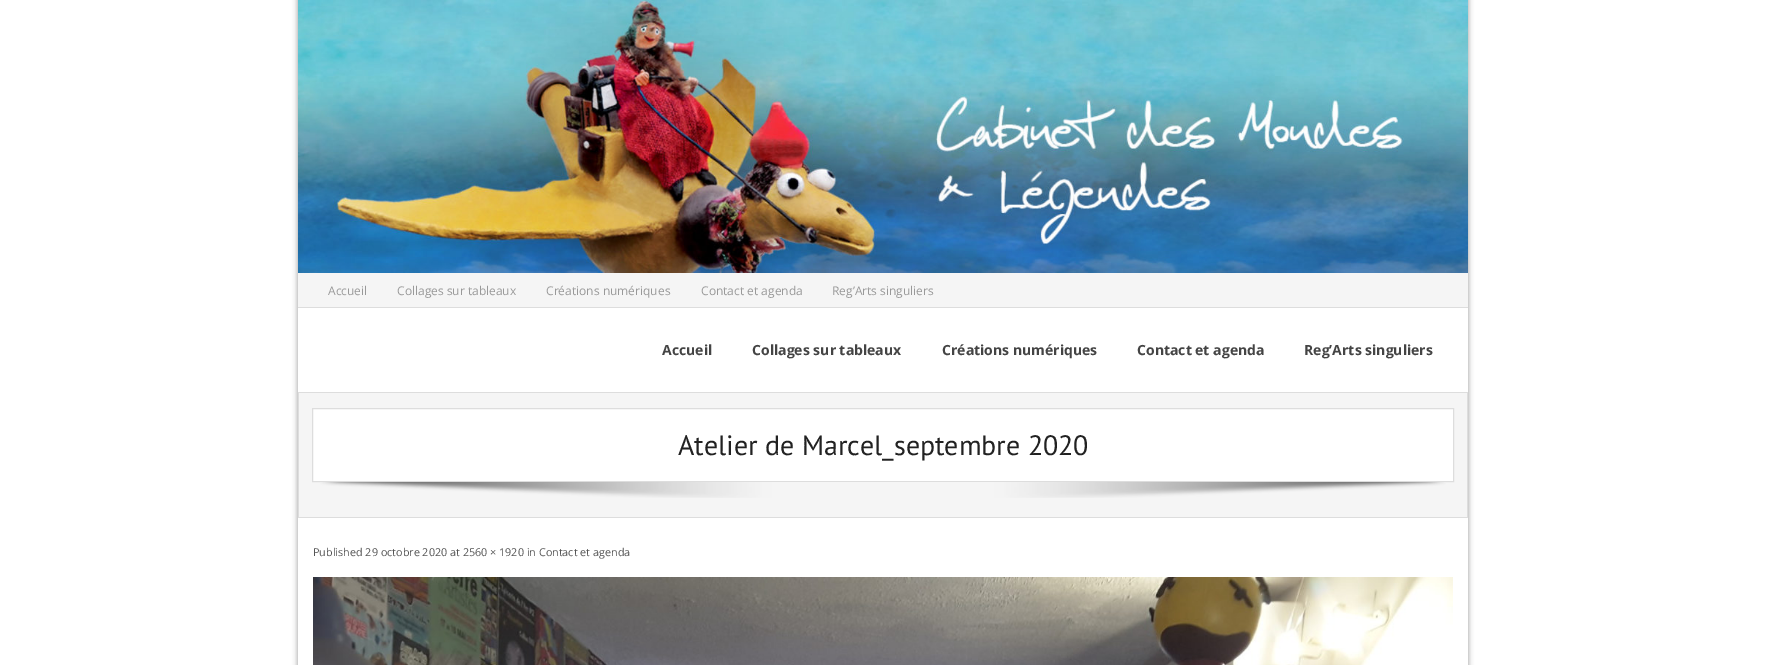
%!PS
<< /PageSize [1766 665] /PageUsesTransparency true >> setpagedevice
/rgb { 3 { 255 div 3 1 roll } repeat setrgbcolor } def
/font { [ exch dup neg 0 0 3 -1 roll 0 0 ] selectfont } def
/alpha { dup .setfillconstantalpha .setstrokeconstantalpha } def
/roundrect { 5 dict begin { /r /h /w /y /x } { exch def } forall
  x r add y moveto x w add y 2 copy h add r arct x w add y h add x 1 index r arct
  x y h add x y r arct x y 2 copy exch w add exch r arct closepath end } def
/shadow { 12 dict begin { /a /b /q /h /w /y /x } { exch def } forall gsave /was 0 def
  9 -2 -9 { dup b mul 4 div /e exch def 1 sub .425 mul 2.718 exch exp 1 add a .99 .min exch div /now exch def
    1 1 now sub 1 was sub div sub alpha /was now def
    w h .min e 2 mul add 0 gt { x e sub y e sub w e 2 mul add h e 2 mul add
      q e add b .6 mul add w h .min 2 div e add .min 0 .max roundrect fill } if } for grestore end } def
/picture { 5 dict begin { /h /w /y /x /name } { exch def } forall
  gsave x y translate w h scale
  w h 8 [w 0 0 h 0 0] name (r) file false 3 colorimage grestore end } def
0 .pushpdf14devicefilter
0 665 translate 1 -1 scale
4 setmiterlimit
255 255 255 rgb
0 0 1766 665 rectfill
gsave
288 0 moveto 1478 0 lineto 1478 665 lineto 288 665 lineto closepath 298 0 moveto 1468 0 lineto 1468 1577 lineto 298 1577 lineto closepath eoclip newpath
0 0 0 rgb
297 -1 1172 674 0 2.5 0.3 shadow
grestore
221 221 221 rgb
298 392 1170 1 rectfill
(img/1.rgb) 298 0 1170 273 picture
[
  [298 273 1170 34 245 245 245]
  [298 307 1170 1 221 221 221]
  [299 393 1168 124 245 245 245]
  [1467 393 1 125 221 221 221]
  [298 517 1170 1 221 221 221]
  [298 393 1 125 221 221 221]
] { aload pop rgb rectfill } forall
255 255 255 rgb
312.5 408.5 moveto 1453.5 408.5 lineto 1453.5 481.5 lineto 312.5 481.5 lineto closepath gsave fill grestore
221 221 221 rgb
stroke
(img/2.rgb) 320 482 1126 16 picture
(img/3.rgb) 313 577 1140 88 picture
/OpenSans-Regular 12 font
153 153 153 rgb
[
  [(Accueil) 328 295]
  [(Collages sur tableaux) 397 295]
  [(Créations numériques) 546 295]
  [(Contact et agenda) 701 295]
  [(Reg’Arts singuliers) 832 295]
] { aload pop moveto show } forall
/OpenSans-Bold 14 font
68 68 68 rgb
[
  [(Accueil) 662 355]
  [(Collages sur tableaux) 752 355]
  [(Créations numériques) 942 355]
  [(Contact et agenda) 1137 355]
  [(Reg’Arts singuliers) 1304 355]
] { aload pop moveto show } forall
/PTSans-Regular 28 font
34 34 34 rgb
678 455 moveto (Atelier de Marcel_septembre 2020) show
/OpenSans-Regular 10.8 font
85 85 85 rgb
313 556 moveto (Published 29 octobre 2020 at 2560 × 1920 in Contact et agenda) show
.poppdf14devicefilter showpage
